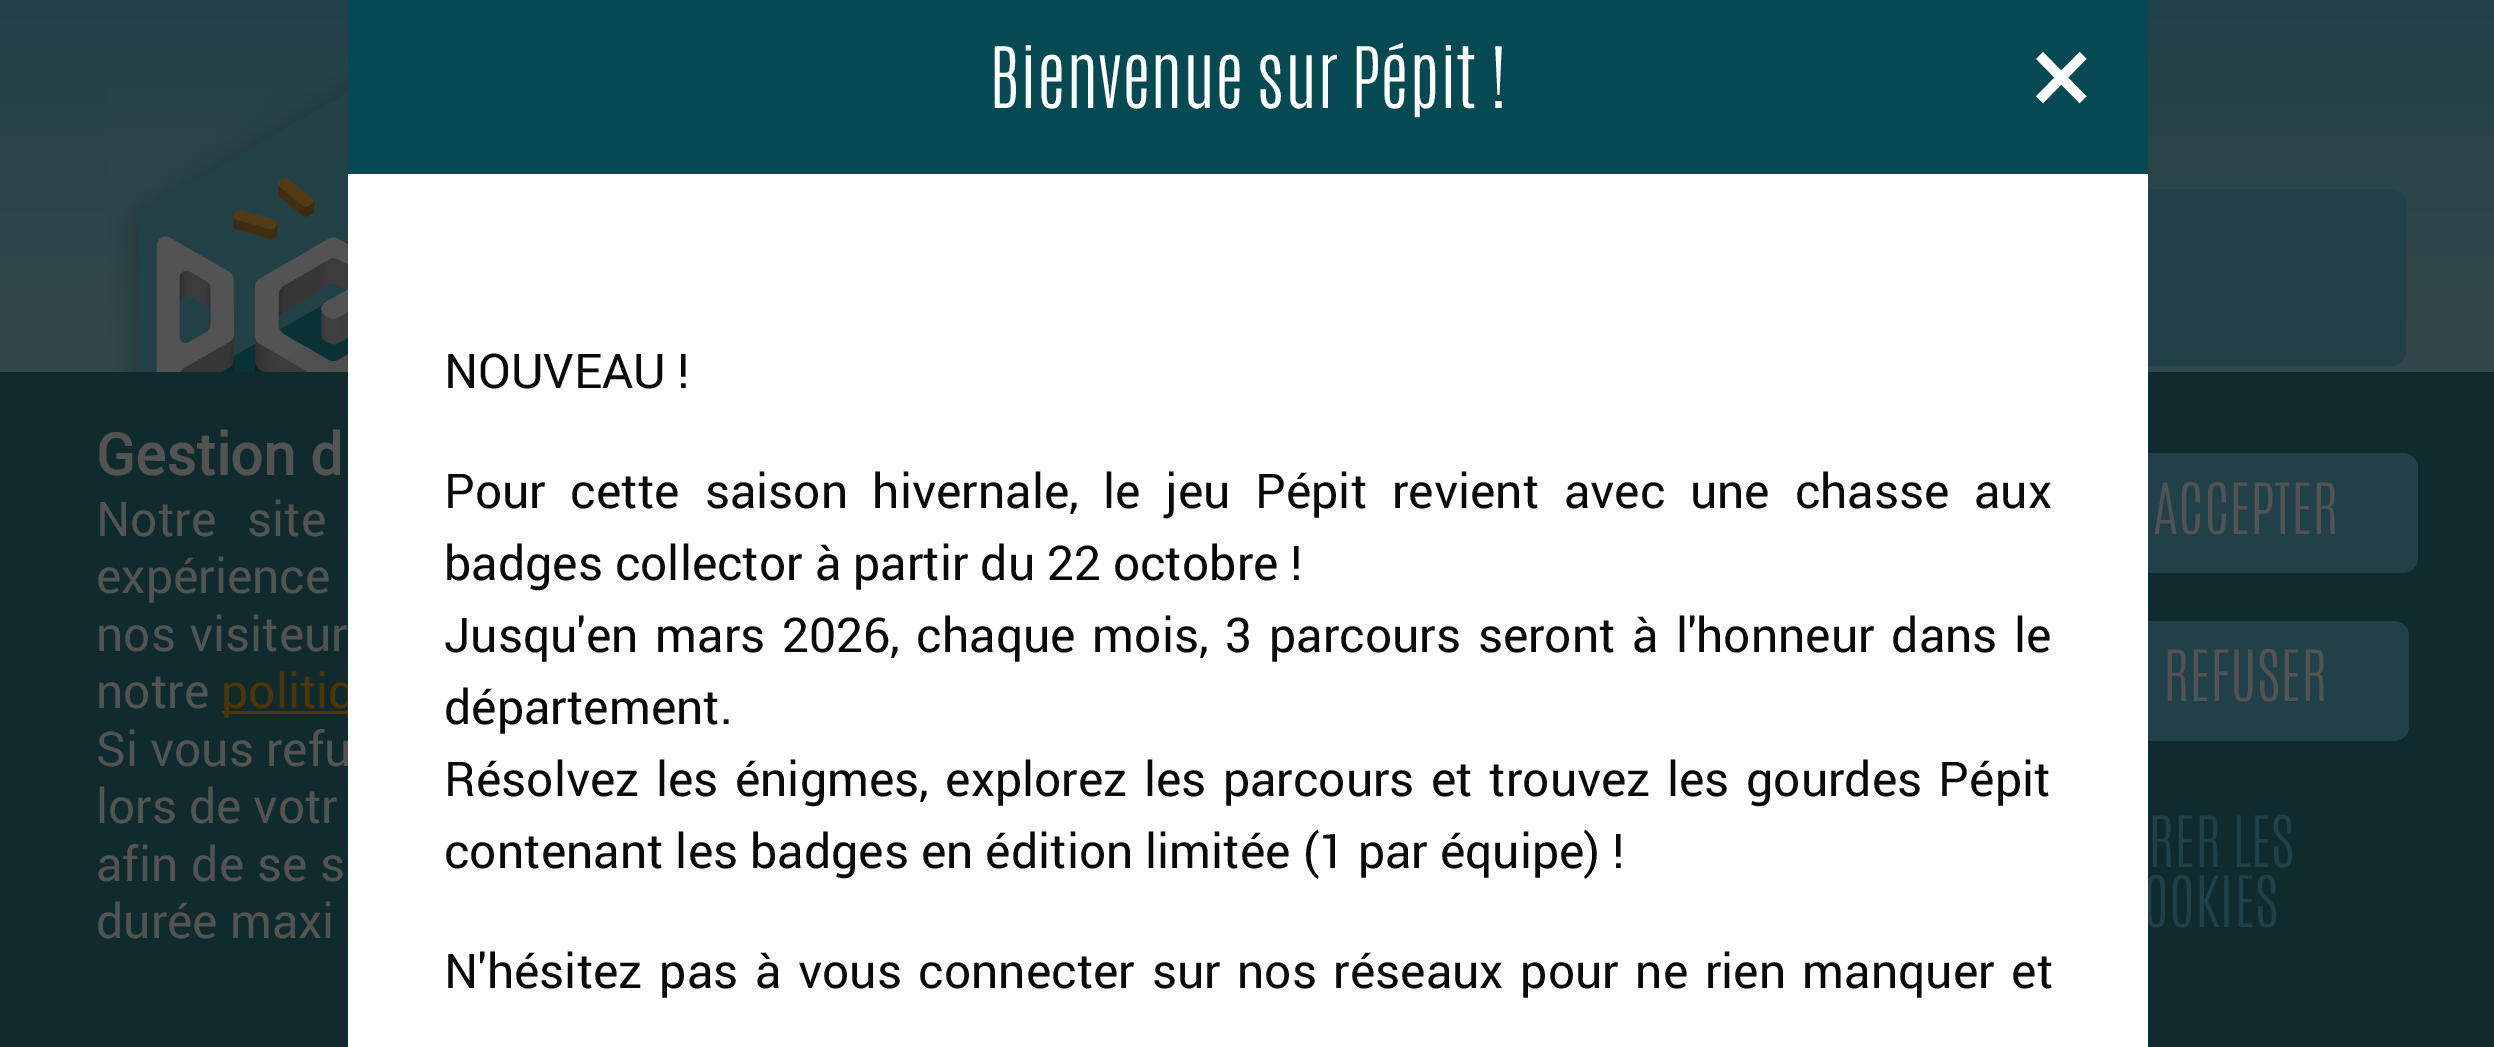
%!PS
<< /PageSize [2494 1047] >> setpagedevice
/rgb { 3 { 255 div 3 1 roll } repeat setrgbcolor } def
/font { [ exch dup neg 0 0 3 -1 roll 0 0 ] selectfont } def
/roundrect { 5 dict begin { /r /h /w /y /x } { exch def } forall
  x r add y moveto x w add y 2 copy h add r arct x w add y h add x 1 index r arct
  x y h add x y r arct x y 2 copy exch w add exch r arct closepath end } def
/picture { 5 dict begin { /h /w /y /x /name } { exch def } forall
  gsave x y translate w h scale
  w h 8 [w 0 0 h 0 0] name (r) file false 3 colorimage grestore end } def
0 1047 translate 1 -1 scale
4 setmiterlimit
255 255 255 rgb
0 0 2494 1047 rectfill
gsave 0 0 moveto 2494 0 lineto 2494 372 lineto 0 372 lineto closepath clip newpath
<< /ShadingType 2 /ColorSpace /DeviceRGB /Coords [1248 0 1248 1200] /Extend [true true] /Function << /FunctionType 3 /Domain [0 1] /Functions [<< /FunctionType 2 /Domain [0 1] /C0 [0.129 0.255 0.282] /C1 [0.325 0.325 0.325] /N 1 >> << /FunctionType 2 /Domain [0 1] /C0 [0.325 0.325 0.325] /C1 [0.325 0.325 0.325] /N 1 >>] /Bounds [0.8] /Encode [0 1 0 1] >> >> shfill grestore
(img/1.rgb) 107 64 241 308 picture
33 65 72 rgb
867 189 1539 177 15 roundrect fill
[
  [348 0 1800 174 5 74 82]
  [0 372 2494 675 15 43 46]
  [222 711 126 3 79 53 7]
] { aload pop rgb rectfill } forall
33 65 72 rgb
1977 453 441 120 15 roundrect fill
1986 621 423 120 15 roundrect fill
/Antonio-Light 72 font
254 254 254 rgb
989 108 moveto (Bienvenue sur Pépit !) show
/Roboto-Regular 115 font
2031 116 moveto (×) show
/Roboto-Bold 57.5 font
83 83 83 rgb
96 475 moveto (Gestion d) show
/Roboto-Regular 48 font
96 536 moveto 19 0 32 (Notre site) widthshow
96 593 moveto (expérience) show
96 651 moveto 1 0 32 (nos visiteur) widthshow
96 708 moveto (notre) show
79 53 7 rgb
221 708 moveto (politiq) show
83 83 83 rgb
96 766 moveto (Si vous refu) show
96 823 moveto (lors de votr) show
96 881 moveto 1 0 32 (afin de se s) widthshow
96 938 moveto (durée maxi) show
/Antonio-Light 60 font
2153 534 moveto (ACCEPTER) show
2163 701 moveto (REFUSER) show
33 65 72 rgb
2148 867 moveto (RER LES) show
2143 927 moveto (OOKIES) show
254 254 254 rgb
348 174 1800 873 rectfill
/Roboto-Regular 48 font
10 10 10 rgb
444 988 moveto 4.75 0 32 (N'hésitez pas à vous connecter sur nos réseaux pour ne rien manquer et) widthshow
444 868 moveto (contenant les badges en édition limitée \(1 par équipe\) !) show
444 796 moveto 4.5 0 32 (Résolvez les énigmes, explorez les parcours et trouvez les gourdes Pépit) widthshow
444 724 moveto (département.) show
444 652 moveto 4.9 0 32 (Jusqu'en mars 2026, chaque mois, 3 parcours seront à l'honneur dans le) widthshow
444 580 moveto (badges collector à partir du 22 octobre !) show
444 508 moveto 12.75 0 32 (Pour cette saison hivernale, le jeu Pépit revient avec une chasse aux) widthshow
444 388 moveto (NOUVEAU !) show
showpage
